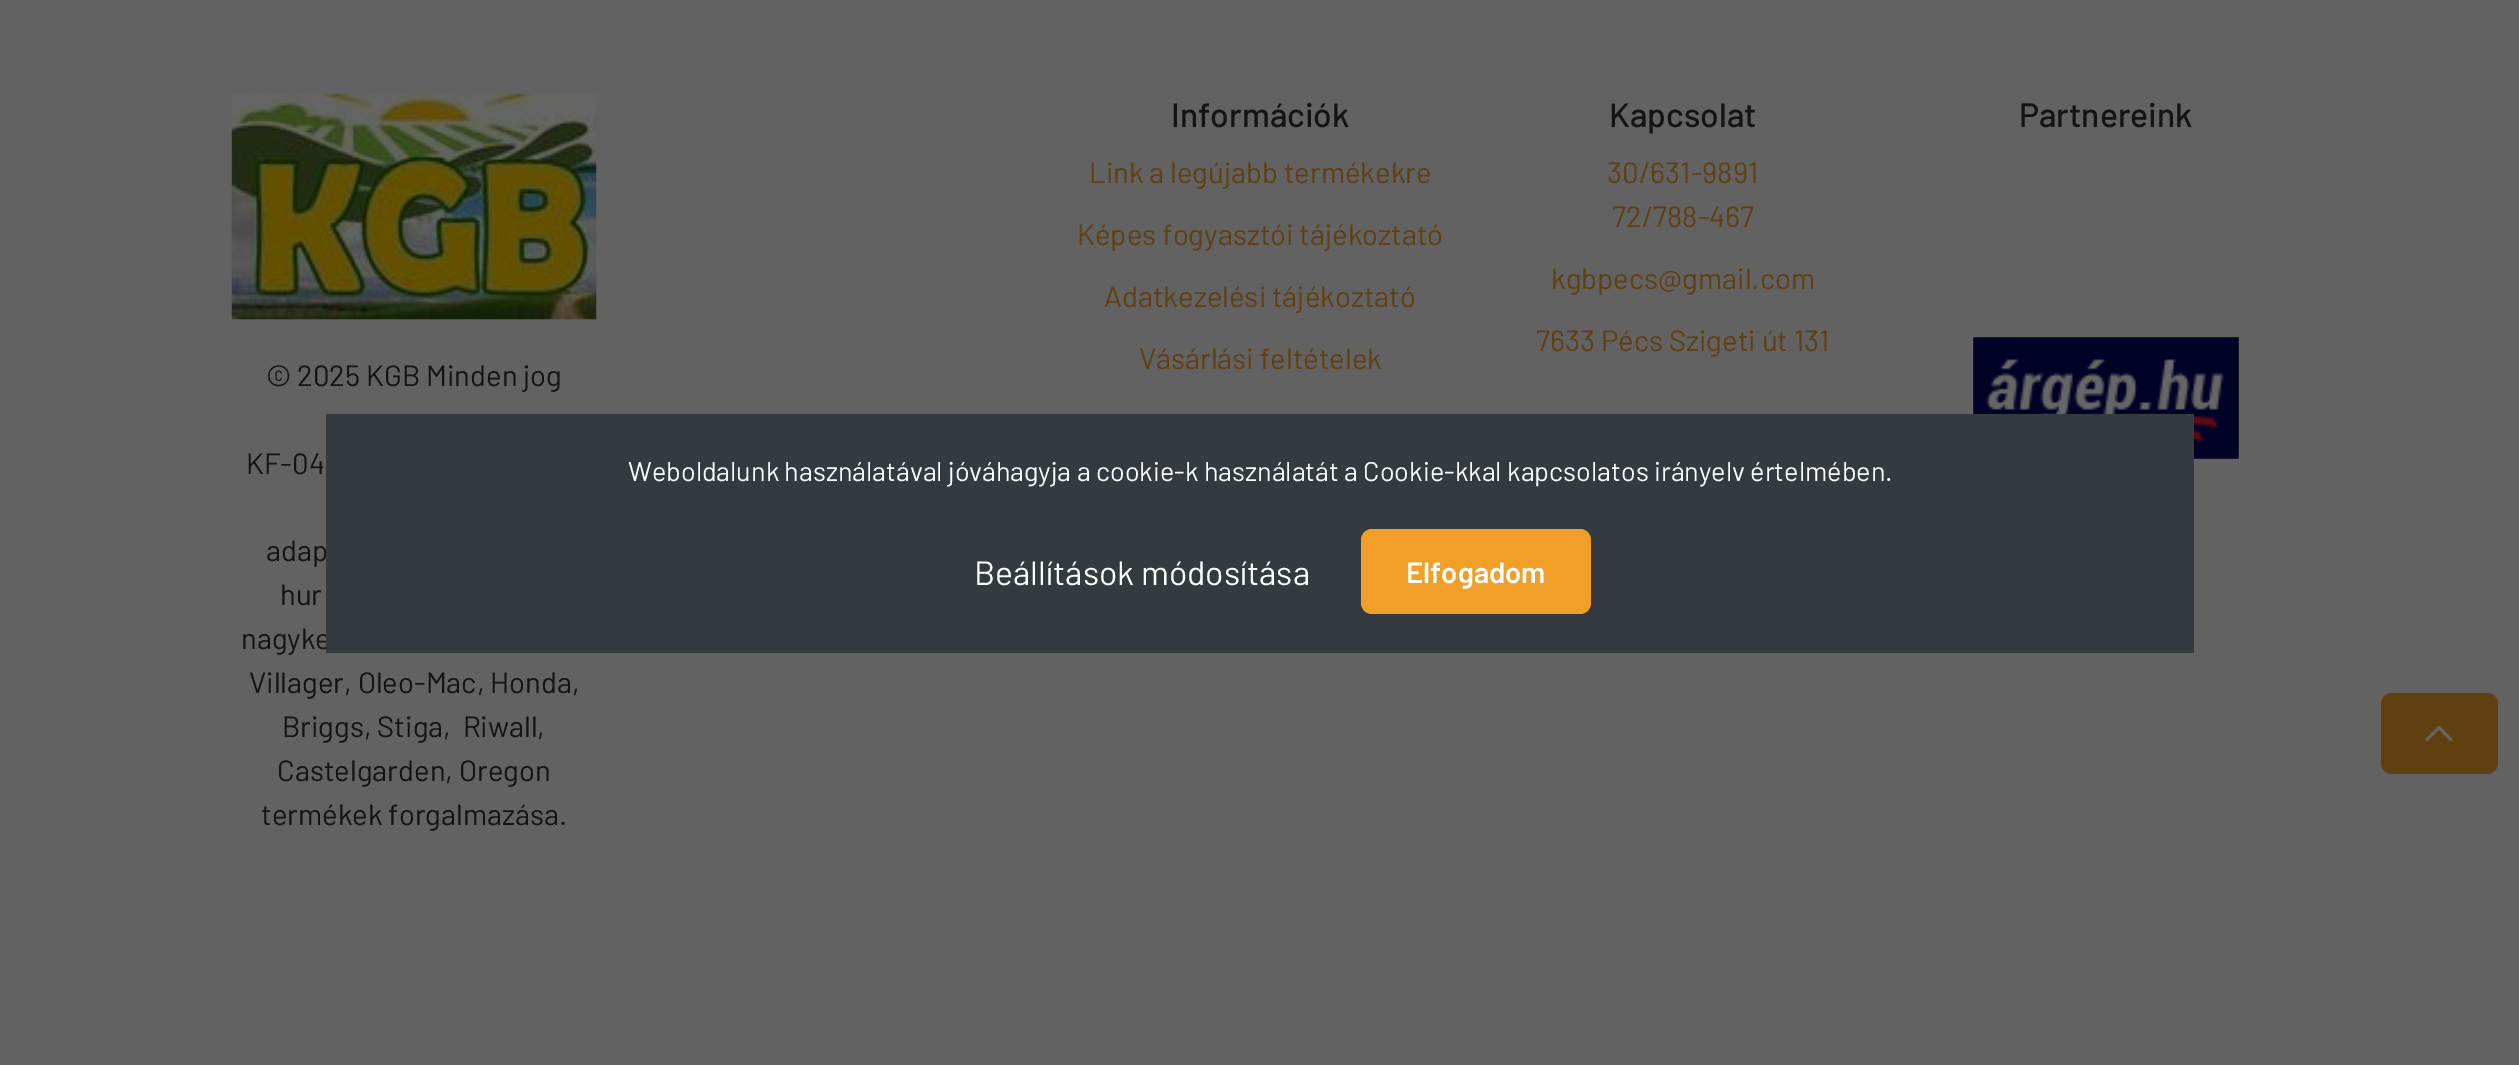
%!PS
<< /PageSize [2519 1065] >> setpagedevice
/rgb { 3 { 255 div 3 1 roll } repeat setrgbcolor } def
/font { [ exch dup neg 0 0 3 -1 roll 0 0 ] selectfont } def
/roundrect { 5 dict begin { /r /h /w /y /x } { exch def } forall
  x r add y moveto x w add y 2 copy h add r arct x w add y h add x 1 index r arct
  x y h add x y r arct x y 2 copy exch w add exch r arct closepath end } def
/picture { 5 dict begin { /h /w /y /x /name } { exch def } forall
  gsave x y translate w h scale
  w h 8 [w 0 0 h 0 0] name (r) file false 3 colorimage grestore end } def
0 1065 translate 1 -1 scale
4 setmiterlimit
98 98 98 rgb
0 0 2519 1065 rectfill
(img/1.rgb) 1973 337 266 122 picture
(img/2.rgb) 231 94 366 226 picture
96 64 16 rgb
2381 693 117 81 11 roundrect fill
(img/3.rgb) 2425 726 28 16 picture
/Barlow-Medium 33.75 font
19 20 20 rgb
1171 127 moveto (Információk) show
/Barlow-Regular 29.25 font
96 64 16 rgb
[
  [(Link a legújabb termékekre) 1089 183]
  [(Képes fogyasztói tájékoztató) 1077 245]
  [(Adatkezelési tájékoztató) 1104 307]
  [(Vásárlási feltételek) 1139 369]
] { aload pop moveto show } forall
/Barlow-Medium 33.75 font
19 20 20 rgb
1609 127 moveto (Kapcsolat) show
/Barlow-Regular 29.25 font
96 64 16 rgb
[
  [(30/631-9891) 1607 183]
  [(72/788-467) 1612 227]
  [(kgbpecs@gmail.com) 1551 289]
  [(7633 Pécs Szigeti út 131) 1536 351]
] { aload pop moveto show } forall
/Barlow-Medium 33.75 font
19 20 20 rgb
2019 127 moveto (Partnereink) show
/Barlow-Regular 29.25 font
[
  [(© 2025 KGB Minden jog) 266 386]
  [(KF-04) 246 474]
  [(adap) 266 561]
  [(hur) 280 605]
  [(nagyke) 241 649]
  [(Villager, Oleo-Mac, Honda,) 249 693]
  [(Briggs, Stiga,  Riwall,) 282 737]
  [(Castelgarden, Oregon) 277 781]
  [(termékek forgalmazása.) 261 825]
] { aload pop moveto show } forall
52 58 64 rgb
326 414 1868 239 rectfill
/Barlow-Regular 27 font
255 255 255 rgb
628 481 moveto (Weboldalunk használatával jóváhagyja a cookie-k használatát a Cookie-kkal kapcsolatos irányelv értelmében.) show
/Barlow-Regular 33.75 font
974 585 moveto (Beállítások módosítása) show
240 160 40 rgb
1361 529 230 85 11 roundrect fill
/Barlow-SemiBold 29.25 font
255 255 255 rgb
1406 583 moveto (Elfogadom) show
showpage
